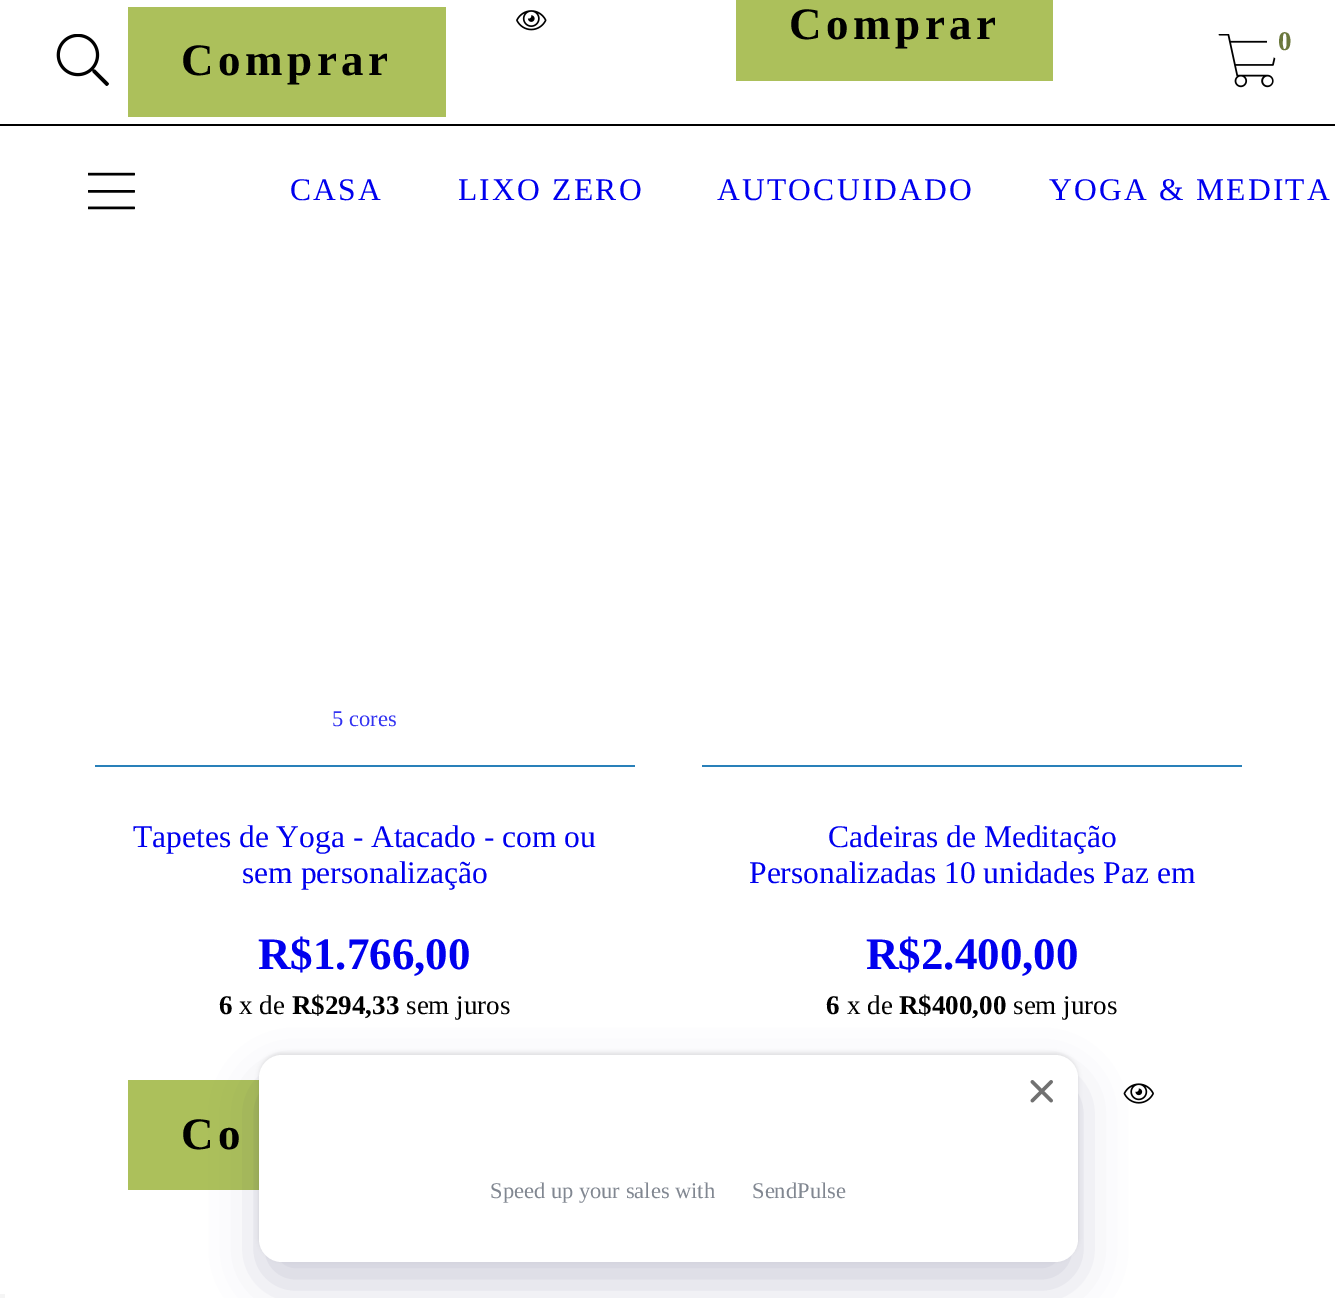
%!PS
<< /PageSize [1335 1298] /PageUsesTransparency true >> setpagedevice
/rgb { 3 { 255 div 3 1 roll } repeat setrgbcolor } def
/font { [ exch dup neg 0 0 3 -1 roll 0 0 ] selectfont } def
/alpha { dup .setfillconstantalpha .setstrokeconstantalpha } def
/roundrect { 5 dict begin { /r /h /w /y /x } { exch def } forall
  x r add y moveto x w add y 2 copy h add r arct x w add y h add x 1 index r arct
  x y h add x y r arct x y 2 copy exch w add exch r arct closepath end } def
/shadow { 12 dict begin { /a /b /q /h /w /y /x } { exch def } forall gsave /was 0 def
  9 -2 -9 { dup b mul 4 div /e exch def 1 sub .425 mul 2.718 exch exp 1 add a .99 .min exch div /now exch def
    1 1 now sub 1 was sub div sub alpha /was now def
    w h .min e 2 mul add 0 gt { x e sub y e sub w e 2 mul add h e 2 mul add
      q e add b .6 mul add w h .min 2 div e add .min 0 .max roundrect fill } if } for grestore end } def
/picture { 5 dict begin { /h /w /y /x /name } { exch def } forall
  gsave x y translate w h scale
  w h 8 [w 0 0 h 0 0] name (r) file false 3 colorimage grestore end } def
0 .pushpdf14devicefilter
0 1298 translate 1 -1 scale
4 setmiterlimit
255 255 255 rgb
0 0 1335 1298 rectfill
172 192 91 rgb
736 0 317 81 rectfill
(img/1.rgb) 516 10 31 21 picture
[
  [128 7 318 110 172 192 91]
  [95 765 540 2 41 128 185]
  [128 1080 131 110 172 192 91]
  [702 765 540 2 41 128 185]
] { aload pop rgb rectfill } forall
(img/2.rgb) 1123 1083 31 21 picture
(img/3.rgb) 56 34 53 52 picture
(img/4.rgb) 1218 34 58 54 picture
255 255 255 rgb
1267 23 36 38 18 roundrect fill
0 0 0 rgb
0 124 1335 2 rectfill
(img/5.rgb) 88 172 47 38 picture
31 31 87 rgb
259 1078 819 207 23 22.5 0.2 shadow
0 0 0 rgb
259 1053 819 207 23 2 0.1 shadow
255 255 255 rgb
259 1055 819 207 23 roundrect fill
(img/6.rgb) 1030 1080 23 23 picture
245 245 245 rgb
0 1294 5 4 rectfill
/LiberationSerif-Bold 45 font
0 0 0 rgb
789 39 moveto 4.5 0 (Comprar) ashow
181 75 moveto 4.5 0 (Comprar) ashow
/LiberationSerif-Regular 22.5 font
51 51 241 rgb
332 726 moveto (5 cores) show
/LiberationSerif-Regular 31.5 font
0 0 238 rgb
133 847 moveto (Tapetes de Yoga - Atacado - com ou) show
242 883 moveto (sem personalização) show
/LiberationSerif-Bold 45 font
258 969 moveto (R$1.766,00) show
/LiberationSerif-Bold 27 font
0 0 0 rgb
219 1014 moveto (6) show
/LiberationSerif-Regular 27 font
239 1014 moveto (x de) show
/LiberationSerif-Bold 27 font
292 1014 moveto (R$294,33) show
/LiberationSerif-Regular 27 font
406 1014 moveto (sem juros) show
/LiberationSerif-Bold 45 font
181 1149 moveto 4.5 0 (Co) ashow
/LiberationSerif-Regular 31.5 font
0 0 238 rgb
828 847 moveto (Cadeiras de Meditação) show
749 883 moveto (Personalizadas 10 unidades Paz em) show
/LiberationSerif-Bold 45 font
866 969 moveto (R$2.400,00) show
/LiberationSerif-Bold 27 font
0 0 0 rgb
826 1014 moveto (6) show
/LiberationSerif-Regular 27 font
847 1014 moveto (x de) show
/LiberationSerif-Bold 27 font
899 1014 moveto (R$400,00) show
/LiberationSerif-Regular 27 font
1013 1014 moveto (sem juros) show
/LiberationSerif-Bold 27 font
107 120 61 rgb
1278 50 moveto (0) show
/LiberationSerif-Regular 31.5 font
0 0 238 rgb
290 200 moveto 2.25 0 (CASA) ashow
458 200 moveto 2.25 0 (LIXO ZERO) ashow
717 200 moveto 2.25 0 (AUTOCUIDADO) ashow
1049 200 moveto 2.25 0 (YOGA & MEDITA) ashow
/LiberationSerif-Regular 22.5 font
129 135 145 rgb
490 1198 moveto (Speed up your sales with) show
752 1198 moveto (SendPulse) show
.poppdf14devicefilter showpage
